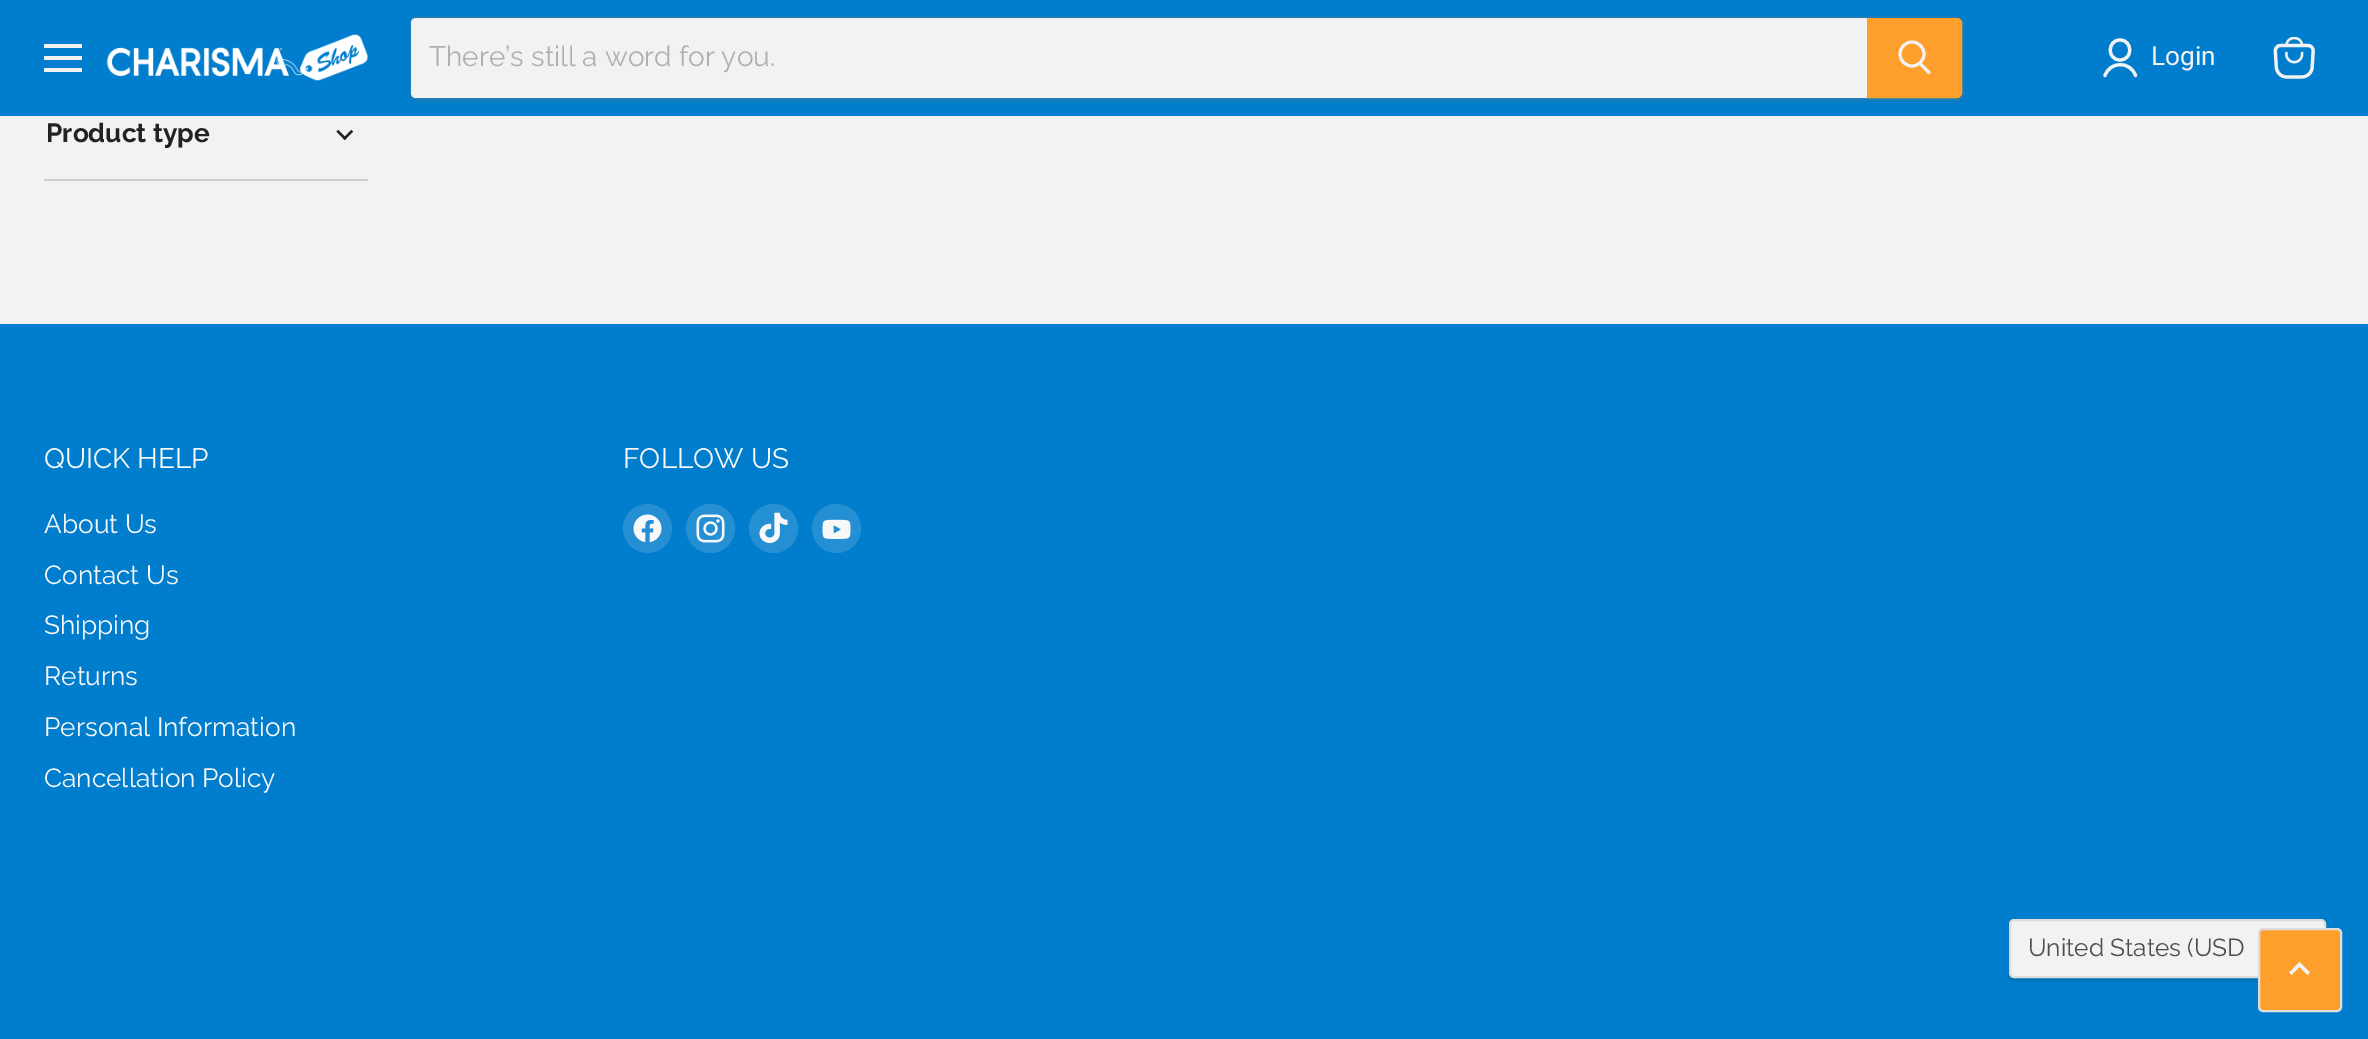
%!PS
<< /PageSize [2368 1039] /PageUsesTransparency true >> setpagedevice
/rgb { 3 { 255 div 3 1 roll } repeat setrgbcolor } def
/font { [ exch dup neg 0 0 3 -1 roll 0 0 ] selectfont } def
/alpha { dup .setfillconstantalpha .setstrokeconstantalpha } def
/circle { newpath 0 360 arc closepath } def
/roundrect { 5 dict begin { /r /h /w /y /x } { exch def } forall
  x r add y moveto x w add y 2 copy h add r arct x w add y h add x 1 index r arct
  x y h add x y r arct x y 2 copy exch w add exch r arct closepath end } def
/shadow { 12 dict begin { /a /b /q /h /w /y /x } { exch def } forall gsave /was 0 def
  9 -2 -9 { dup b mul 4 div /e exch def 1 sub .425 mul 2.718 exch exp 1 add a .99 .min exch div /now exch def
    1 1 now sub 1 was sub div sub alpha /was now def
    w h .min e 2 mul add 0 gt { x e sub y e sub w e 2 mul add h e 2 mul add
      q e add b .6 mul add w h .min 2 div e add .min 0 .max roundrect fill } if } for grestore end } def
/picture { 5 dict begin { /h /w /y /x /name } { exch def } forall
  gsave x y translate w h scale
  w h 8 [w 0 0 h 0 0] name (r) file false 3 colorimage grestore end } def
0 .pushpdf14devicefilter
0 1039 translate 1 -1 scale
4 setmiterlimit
242 242 242 rgb
0 0 2368 1039 rectfill
[
  [0 0 2368 116 0 125 204]
  [44 44 38 4 242 242 242]
  [44 56 38 4 242 242 242]
  [44 68 38 4 242 242 242]
] { aload pop rgb rectfill } forall
(img/1.rgb) 106 34 262 47 picture
121 121 121 rgb
410 19 1554 84 7 2.5 0.11 shadow
0.2 alpha
2 setlinewidth
411 17 1552 82 6 roundrect stroke
1 alpha
242 242 242 rgb
416 18 moveto 1867 18 lineto 1867 98 lineto 416 98 lineto 413 98 411 96 411 93 curveto 411 23 lineto 411 20 413 18 416 18 curveto closepath fill
255 159 43 rgb
1868 19 moveto 1957 19 lineto 1959 19 1961 21 1961 23 curveto 1961 93 lineto 1961 95 1959 97 1957 97 curveto 1868 97 lineto closepath gsave fill grestore
stroke
242 242 242 rgb
3 setlinewidth
1 setlinecap
1929 72.5 moveto 1920.5 64 lineto stroke
0 setlinecap
1912 54 12 circle stroke
3.2 setlinewidth
1 setlinecap
1 setlinejoin
2120 60 moveto 2133 60 2133 40 2120 40 curveto 2107 40 2107 60 2120 60 curveto closepath 2135.5 75.5 moveto 2130.5 61 2110 61 2105 75.5 curveto stroke
(img/2.rgb) 2273 37 42 42 picture
206 206 206 rgb
44 179 324 2 rectfill
(img/3.rgb) 336 129 18 11 picture
0 125 204 rgb
0 324 2368 715 rectfill
37 143 211 rgb
647.5 528.5 24.5 circle fill
(img/4.rgb) 633 514 29 29 picture
710.5 528.5 24.5 circle fill
(img/5.rgb) 696 514 29 29 picture
773.5 528.5 24.5 circle fill
(img/6.rgb) 759 512 29 31 picture
836.5 528.5 24.5 circle fill
(img/7.rgb) 822 519 29 20 picture
0 0 0 rgb
2009 921 317 59 5 2 0.15 shadow
242 242 242 rgb
2010 920 315 57 4 roundrect gsave fill grestore
221 221 221 rgb
2 setlinewidth
0 setlinecap
0 setlinejoin
stroke
255 159 43 rgb
2259 929 82 82 4 roundrect gsave fill grestore
221 221 221 rgb
stroke
242 242 242 rgb
3.3 setlinewidth
2 setlinecap
2299.5 964.5 moveto 2291.5 972.5 lineto 2299.5 964.5 moveto 2307.5 972.5 lineto stroke
/Raleway-Regular 28 font
176 176 176 rgb
429 66 moveto (There’s still a word for you.) show
/Roboto-Regular 26.25 font
242 242 242 rgb
2151 65 moveto (Login) show
/Raleway-Bold 26.25 font
34 34 34 rgb
46 142 moveto (Product type) show
/Raleway-Regular 28 font
248 248 248 rgb
44 468 moveto (QUICK HELP) show
/Raleway-Regular 26.25 font
[
  [(About Us) 44 533]
  [(Contact Us) 44 584]
  [(Shipping) 44 634]
  [(Returns) 44 685]
  [(Personal Information) 44 736]
  [(Cancellation Policy) 44 787]
] { aload pop moveto show } forall
/Raleway-Regular 28 font
623 468 moveto (FOLLOW US) show
/Raleway-Regular 24.5 font
77 77 77 rgb
2028 956 moveto (United States \(USD) show
.poppdf14devicefilter showpage
